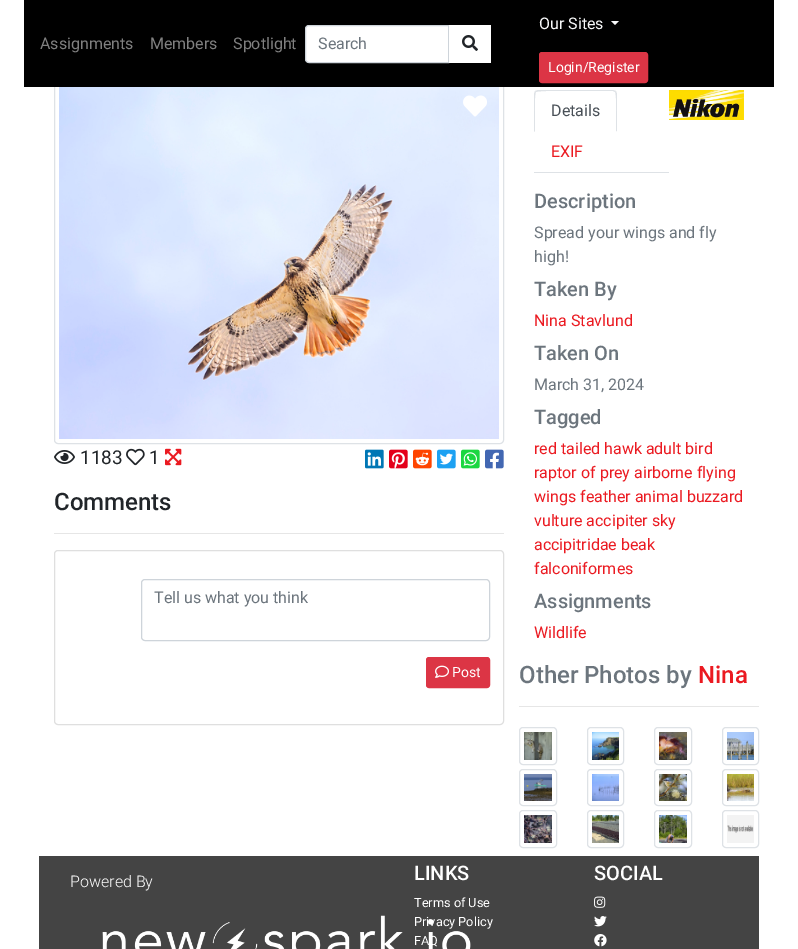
%!PS
<< /PageSize [798 949] >> setpagedevice
/rgb { 3 { 255 div 3 1 roll } repeat setrgbcolor } def
/font { [ exch dup neg 0 0 3 -1 roll 0 0 ] selectfont } def
/roundrect { 5 dict begin { /r /h /w /y /x } { exch def } forall
  x r add y moveto x w add y 2 copy h add r arct x w add y h add x 1 index r arct
  x y h add x y r arct x y 2 copy exch w add exch r arct closepath end } def
/picture { 5 dict begin { /h /w /y /x /name } { exch def } forall
  gsave x y translate w h scale
  w h 8 [w 0 0 h 0 0] name (r) file false 3 colorimage grestore end } def
0 949 translate 1 -1 scale
4 setmiterlimit
255 255 255 rgb
0 0 798 949 rectfill
222 226 230 rgb
54.5 82.5 449 361 3.5 roundrect stroke
0 0 0 rgb
24 0 750 87 rectfill
255 255 255 rgb
309 25.5 moveto 448.5 25.5 lineto 448.5 62.5 lineto 309 62.5 lineto 307 62.5 305.5 61 305.5 59 curveto 305.5 29 lineto 305.5 27 307 25.5 309 25.5 curveto closepath gsave fill grestore
206 212 218 rgb
stroke
255 255 255 rgb
449 25 42 38 rectfill
(img/1.rgb) 462 35 16 16 picture
248 249 250 rgb
611 21 moveto 619 21 lineto 615 25 lineto closepath fill
220 53 69 rgb
539.5 52.5 108 30 2.5 roundrect gsave fill grestore
stroke
(img/2.rgb) 59 87 440 352 picture
(img/3.rgb) 463 95 24 22 picture
(img/4.rgb) 54 450 21 14 picture
(img/5.rgb) 126 448 19 18 picture
(img/6.rgb) 165 448 17 18 picture
(img/7.rgb) 365 449 19 20 picture
(img/8.rgb) 389 449 19 20 picture
(img/9.rgb) 413 449 19 20 picture
(img/10.rgb) 437 449 19 20 picture
(img/11.rgb) 461 449 19 20 picture
(img/12.rgb) 485 449 19 20 picture
230 230 230 rgb
54 533 450 1 rectfill
223 223 223 rgb
54.5 550.5 449 174 3.5 roundrect stroke
206 212 218 rgb
141.5 579.5 348 61 3.5 roundrect stroke
220 53 69 rgb
426.5 657.5 63 30 2.5 roundrect gsave fill grestore
stroke
(img/13.rgb) 435 665 14 13 picture
222 226 230 rgb
534 172 135 1 rectfill
538 90 moveto 535 91 lineto 536 92 lineto 538 90 593 91 600 91 curveto 613 91 lineto 615 92 lineto 616 91 lineto 613 90 lineto closepath fill
617 132 moveto 617 94 lineto 617 93 616 92 616 91 curveto 615 92 lineto 617 94 616 126 616 131 curveto closepath fill
255 255 255 rgb
617 132 moveto 616 131 lineto 535 131 lineto 534 132 lineto closepath fill
222 226 230 rgb
534 132 moveto 535 131 lineto 535 126 534 94 536 92 curveto 535 91 lineto 534 94 lineto closepath fill
(img/14.rgb) 669 90 75 30 picture
230 230 230 rgb
519 706 240 1 rectfill
222 226 230 rgb
519.5 727.5 37 37 3.5 roundrect stroke
(img/15.rgb) 524 732 28 28 picture
587.5 727.5 36 37 3.5 roundrect stroke
(img/16.rgb) 592 732 27 28 picture
654.5 727.5 37 37 3.5 roundrect stroke
(img/17.rgb) 659 732 28 28 picture
722.5 727.5 36 37 3.5 roundrect stroke
(img/18.rgb) 727 732 27 28 picture
519.5 769.5 37 36 3.5 roundrect stroke
(img/19.rgb) 524 774 28 27 picture
587.5 769.5 36 36 3.5 roundrect stroke
(img/20.rgb) 592 774 27 27 picture
654.5 769.5 37 36 3.5 roundrect stroke
(img/21.rgb) 659 774 28 27 picture
722.5 769.5 36 36 3.5 roundrect stroke
(img/22.rgb) 727 774 27 27 picture
519.5 810.5 37 37 3.5 roundrect stroke
(img/23.rgb) 524 815 28 28 picture
587.5 810.5 36 37 3.5 roundrect stroke
(img/24.rgb) 592 815 27 28 picture
654.5 810.5 37 37 3.5 roundrect stroke
(img/25.rgb) 659 815 28 28 picture
722.5 810.5 36 37 3.5 roundrect stroke
(img/26.rgb) 727 815 27 28 picture
68 68 68 rgb
39 856 720 93 rectfill
(img/27.rgb) 594 896 12 12 picture
(img/28.rgb) 594 916 13 11 picture
(img/29.rgb) 594 934 13 13 picture
(img/30.rgb) 102 915 369 34 picture
/Roboto-Regular 16 font
128 128 128 rgb
[
  [(Assignments) 40 49]
  [(Members) 150 49]
  [(Spotlight) 233 49]
] { aload pop moveto show } forall
108 117 125 rgb
318 49 moveto (Search) show
248 249 250 rgb
539 29 moveto (Our Sites) show
/Roboto-Regular 14 font
255 255 255 rgb
548 72 moveto (Login/Register) show
/Roboto-Regular 19 font
33 37 41 rgb
80 464 moveto (1183) show
149 464 moveto (1) show
/Roboto-Medium 24 font
54 510 moveto (Comments) show
/Roboto-Regular 16 font
108 117 125 rgb
154 603 moveto (Tell us what you think) show
/Roboto-Regular 14 font
255 255 255 rgb
452 677 moveto (Post) show
/Roboto-Regular 16 font
73 80 87 rgb
551 116 moveto (Details) show
235 26 33 rgb
551 157 moveto (EXIF) show
/Roboto-Medium 20 font
108 117 125 rgb
534 208 moveto (Description) show
/Roboto-Regular 16 font
534 238 moveto (Spread your wings and fly) show
534 262 moveto (high!) show
/Roboto-Medium 20 font
534 296 moveto (Taken By) show
/Roboto-Regular 16 font
235 26 33 rgb
534 326 moveto (Nina Stavlund) show
/Roboto-Medium 20 font
108 117 125 rgb
534 360 moveto (Taken On) show
/Roboto-Regular 16 font
534 390 moveto (March 31, 2024) show
/Roboto-Medium 20 font
534 424 moveto (Tagged) show
/Roboto-Regular 16 font
235 26 33 rgb
[
  [(red tailed hawk adult bird) 534 454]
  [(raptor of prey airborne flying) 534 478]
  [(wings feather animal buzzard) 534 502]
  [(vulture accipiter sky) 534 526]
  [(accipitridae beak) 534 550]
  [(falconiformes) 534 574]
] { aload pop moveto show } forall
/Roboto-Medium 20 font
108 117 125 rgb
534 608 moveto (Assignments) show
/Roboto-Regular 16 font
235 26 33 rgb
534 638 moveto (Wildlife) show
/Roboto-Medium 24 font
108 117 125 rgb
519 683 moveto (Other Photos by) show
235 26 33 rgb
698 683 moveto (Nina) show
/Roboto-Medium 20 font
255 255 255 rgb
414 880 moveto (LINKS) show
/Roboto-Regular 12.75 font
[
  [(Terms of Use) 414 907]
  [(Privacy Policy) 414 926]
  [(FAQ) 414 945]
] { aload pop moveto show } forall
/Roboto-Medium 20 font
594 880 moveto (SOCIAL) show
/Roboto-Light 16 font
70 887 moveto (Powered By) show
showpage
